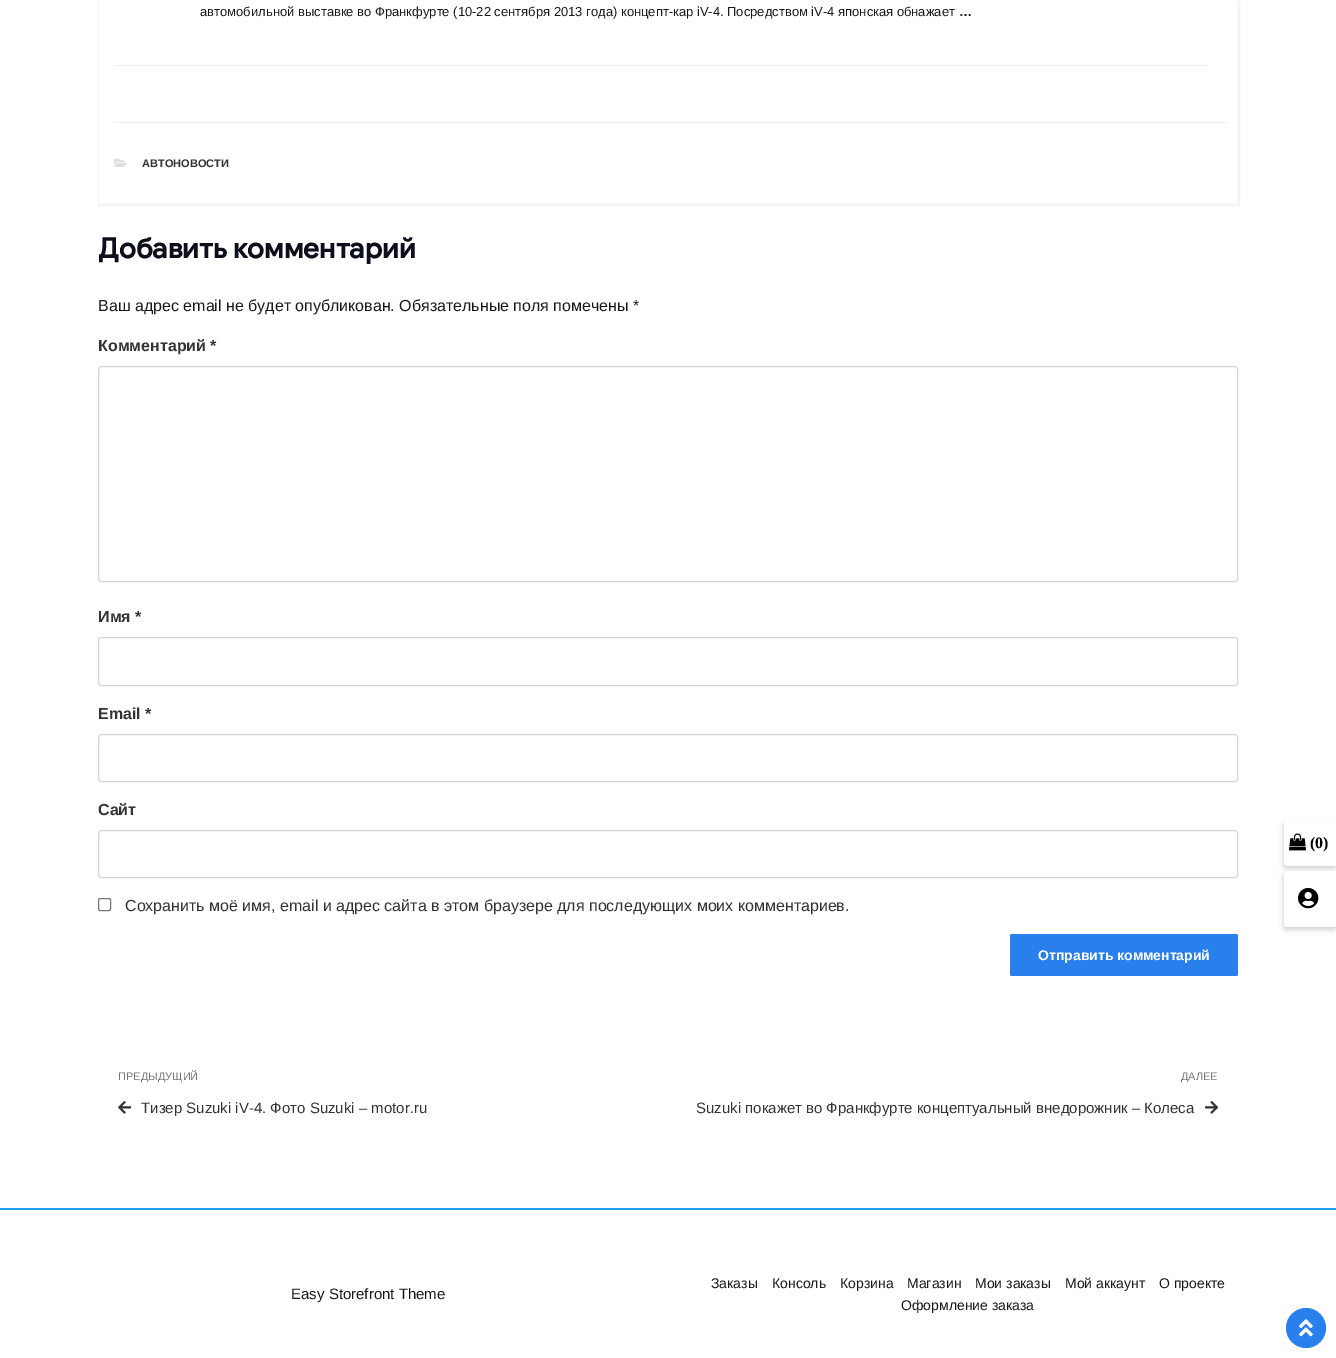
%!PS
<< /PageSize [1336 1358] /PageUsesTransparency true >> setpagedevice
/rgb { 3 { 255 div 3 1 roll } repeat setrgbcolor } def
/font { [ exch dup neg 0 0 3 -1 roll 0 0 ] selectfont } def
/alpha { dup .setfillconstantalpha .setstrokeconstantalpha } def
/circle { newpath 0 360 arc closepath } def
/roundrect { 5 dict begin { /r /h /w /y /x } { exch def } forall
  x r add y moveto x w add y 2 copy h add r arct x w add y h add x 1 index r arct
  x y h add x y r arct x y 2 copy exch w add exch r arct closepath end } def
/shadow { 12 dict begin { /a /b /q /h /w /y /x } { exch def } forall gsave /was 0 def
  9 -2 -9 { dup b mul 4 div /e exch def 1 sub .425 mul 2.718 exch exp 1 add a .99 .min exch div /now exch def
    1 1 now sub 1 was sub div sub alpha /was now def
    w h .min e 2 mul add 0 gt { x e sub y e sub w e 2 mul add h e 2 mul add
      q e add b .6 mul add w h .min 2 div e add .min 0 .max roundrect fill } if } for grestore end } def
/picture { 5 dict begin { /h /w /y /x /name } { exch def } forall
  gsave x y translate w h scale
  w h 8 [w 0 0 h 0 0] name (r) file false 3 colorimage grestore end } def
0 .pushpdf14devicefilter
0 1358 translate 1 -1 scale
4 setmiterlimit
255 255 255 rgb
0 0 1336 1358 rectfill
gsave
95 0 moveto 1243 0 lineto 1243 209 lineto 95 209 lineto closepath 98 -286 moveto 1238 -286 lineto 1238 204 lineto 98 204 lineto closepath eoclip newpath
242 242 242 rgb
98 -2 1142 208 0 0.5 1 shadow
grestore
249 249 249 rgb
98.5 -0.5 1139 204 rectstroke
238 238 238 rgb
114 65 1094 1 rectfill
114 122 1113 1 rectfill
(img/1.rgb) 114 158 13 9 picture
215 215 215 rgb
98.5 366.5 1139 215 2.5 roundrect stroke
98.5 637.5 1139 48 2.5 roundrect stroke
98.5 734.5 1139 47 2.5 roundrect stroke
98.5 830.5 1139 47 2.5 roundrect stroke
118 118 118 rgb
98.5 898.5 12 12 1.5 roundrect stroke
41 127 236 rgb
1010 934 228 42 2 roundrect fill
(img/2.rgb) 118 1101 14 13 picture
(img/3.rgb) 1205 1101 14 13 picture
212 212 212 rgb
1283 823 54 46 3 2.5 1 shadow
255 255 255 rgb
1284 820 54 46 3 roundrect fill
(img/4.rgb) 1289 833 17 18 picture
212 212 212 rgb
1283 874 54 56 3 2.5 1 shadow
255 255 255 rgb
1284 871 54 56 3 roundrect fill
(img/5.rgb) 1298 888 21 21 picture
29 161 242 rgb
0 1208 1336 2 rectfill
41 127 236 rgb
1306 1328 20 circle fill
(img/6.rgb) 1299 1319 14 18 picture
/LiberationSans-Regular 13 font
25 25 25 rgb
200 16 moveto (автомобильной выставке во Франкфурте \(10-22 сентября 2013 года\) концепт-кар iV-4. Посредством iV-4 японская обнажает) show
/LiberationSans-Bold 13 font
959 16 moveto (…) show
/LiberationSans-Bold 11 font
51 51 51 rgb
142 167 moveto (АВТОНОВОСТИ) show
/GoogleSans-Bold 28 font
13 15 26 rgb
98 258 moveto (Добавить комментарий) show
/LiberationSans-Regular 16 font
25 25 25 rgb
98 311 moveto (Ваш адрес email не будет опубликован. Обязательные поля помечены *) show
/LiberationSans-Bold 16 font
51 51 51 rgb
[
  [(Комментарий *) 98 351]
  [(Имя *) 98 622]
  [(Email *) 98 719]
  [(Сайт) 98 815]
] { aload pop moveto show } forall
/LiberationSans-Regular 16 font
125 911 moveto (Сохранить моё имя, email и адрес сайта в этом браузере для последующих моих комментариев.) show
/LiberationSans-Bold 14 font
255 255 255 rgb
1038 960 moveto (Отправить комментарий) show
/LiberationSans-Regular 11 font
118 118 118 rgb
118 1080 moveto (ПРЕДЫДУЩИЙ) show
/LiberationSans-Regular 15 font
51 51 51 rgb
141 1113 moveto (Тизер Suzuki iV-4. Фото Suzuki – motor.ru) show
/LiberationSans-Regular 11 font
118 118 118 rgb
1181 1080 moveto (ДАЛЕЕ) show
/LiberationSans-Regular 15 font
51 51 51 rgb
696 1113 moveto (Suzuki покажет во Франкфурте концептуальный внедорожник – Колеса) show
/LiberationSerif-Bold 16 font
0 0 0 rgb
1310 848 moveto (\(0\)) show
/LiberationSans-Regular 15 font
25 25 25 rgb
291 1299 moveto (Easy Storefront Theme) show
/LiberationSans-Regular 14 font
[
  [(Заказы) 711 1288]
  [(Консоль) 772 1288]
  [(Корзина) 840 1288]
  [(Магазин) 907 1288]
  [(Мои заказы) 975 1288]
  [(Мой аккаунт) 1065 1288]
  [(О проекте) 1159 1288]
  [(Оформление заказа) 901 1310]
] { aload pop moveto show } forall
.poppdf14devicefilter showpage
